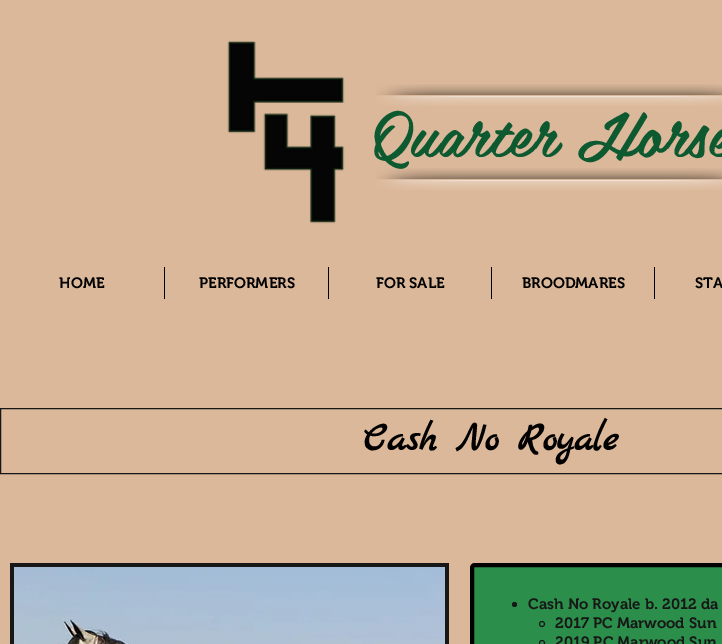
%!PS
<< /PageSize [722 644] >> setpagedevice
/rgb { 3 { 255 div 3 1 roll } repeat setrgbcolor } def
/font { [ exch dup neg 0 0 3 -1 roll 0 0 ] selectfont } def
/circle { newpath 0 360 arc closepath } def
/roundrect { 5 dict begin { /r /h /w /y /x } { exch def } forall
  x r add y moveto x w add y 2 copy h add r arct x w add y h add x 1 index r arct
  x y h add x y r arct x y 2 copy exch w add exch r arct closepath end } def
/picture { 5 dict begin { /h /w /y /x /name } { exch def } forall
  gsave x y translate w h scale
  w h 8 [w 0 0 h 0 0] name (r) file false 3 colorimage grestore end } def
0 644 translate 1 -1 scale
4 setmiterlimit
219 184 154 rgb
0 0 722 644 rectfill
(img/1.rgb) 227 41 118 183 picture
(img/2.rgb) 376 84 97 22 picture
(img/3.rgb) 473 84 180 22 picture
(img/4.rgb) 653 84 69 22 picture
[
  [164 267 1 32 0 0 0]
  [328 267 1 32 0 0 0]
  [491 267 1 32 0 0 0]
  [654 267 1 32 0 0 0]
] { aload pop rgb rectfill } forall
23 23 23 rgb
0.5 408.5 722 65 rectstroke
10 563 439 81 rectfill
(img/6.rgb) 14 567 431 77 picture
43 142 74 rgb
472 565 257 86 3 roundrect gsave fill grestore
0 0 0 rgb
4 setlinewidth
stroke
23 23 23 rgb
514.5 604.5 2.5 circle fill
1 setlinewidth
542 624 2.5 circle stroke
542 643 2.5 circle stroke
/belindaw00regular-Regular 63 font
13 89 48 rgb
373 157 moveto (Quarter Horse) show
(img/5.rgb) 376 168 97 22 picture
(img/3.rgb) 473 168 180 22 picture
(img/4.rgb) 653 168 69 22 picture
/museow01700-SemiBold 15 font
0 0 0 rgb
[
  [(HOME) 59 288]
  [(PERFORMERS) 199 288]
  [(FOR SALE) 376 288]
  [(BROODMARES) 522 288]
  [(STA) 695 288]
] { aload pop moveto show } forall
/MarckScript-Bold 40 font
363 450 moveto (Cash No Royale) show
/museow01700-SemiBold 15 font
23 23 23 rgb
[
  [(Cash No Royale b. 2012 da) 528 609]
  [(2017 PC Marwood Sun) 555 628]
  [(2019 PC Marwood Sun) 555 647]
] { aload pop moveto show } forall
showpage
